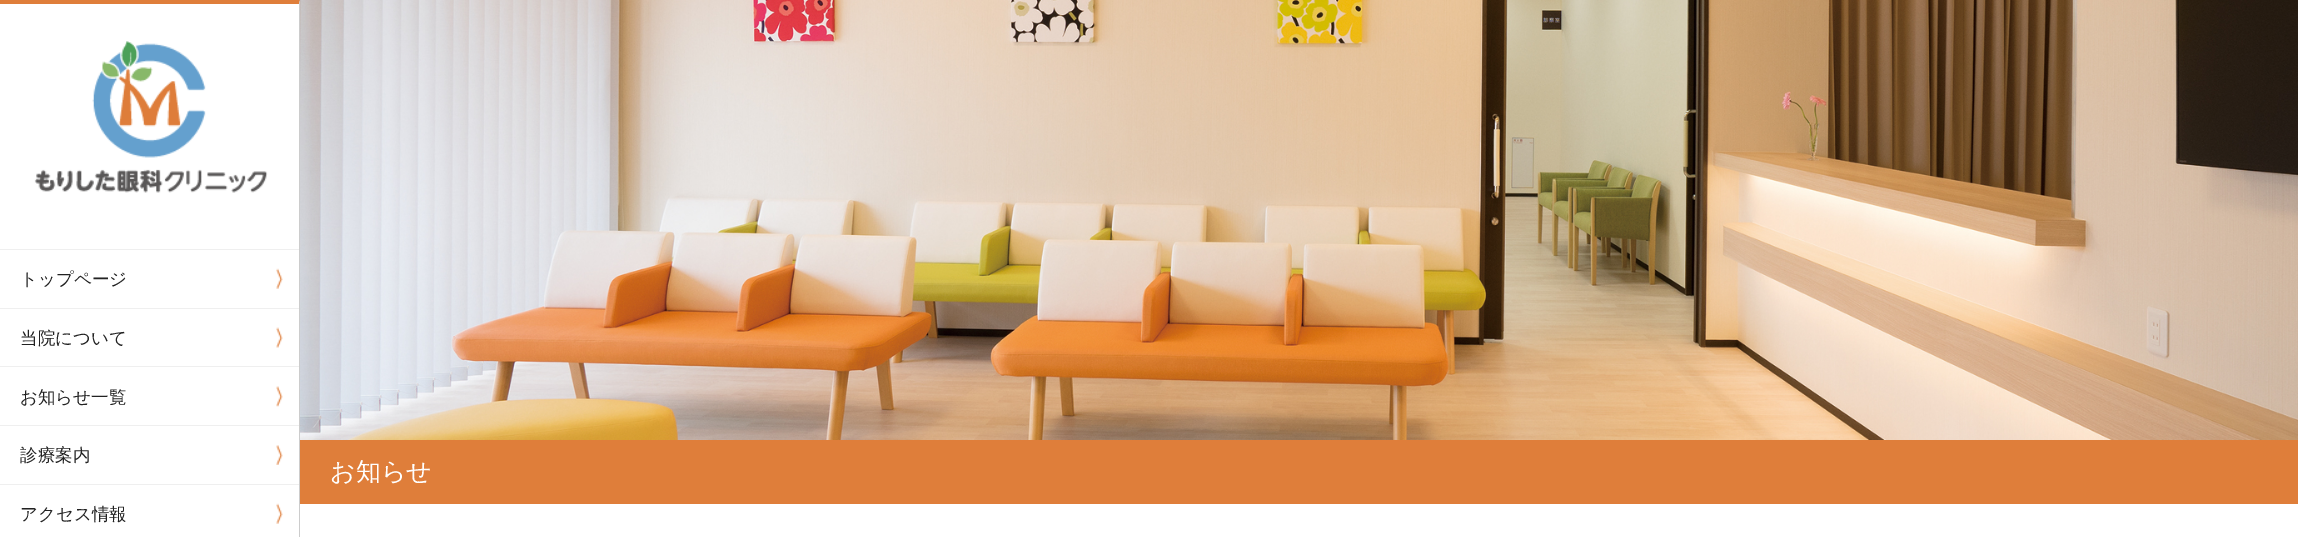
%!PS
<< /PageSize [2298 537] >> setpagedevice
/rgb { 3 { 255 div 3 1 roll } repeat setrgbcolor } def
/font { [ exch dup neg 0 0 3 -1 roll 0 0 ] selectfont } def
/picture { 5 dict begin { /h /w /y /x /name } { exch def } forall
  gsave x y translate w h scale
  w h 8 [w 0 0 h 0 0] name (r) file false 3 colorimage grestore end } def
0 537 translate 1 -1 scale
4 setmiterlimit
255 255 255 rgb
0 0 2298 537 rectfill
223 126 58 rgb
0 0 moveto 300 0 lineto 299 4 lineto 0 4 lineto closepath fill
204 204 204 rgb
300 0 moveto 300 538 lineto 299 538 lineto 299 4 lineto closepath fill
(img/1.rgb) 34 41 234 152 picture
(img/2.rgb) 276 268 7 21 picture
239 239 239 rgb
0 249 299 1 rectfill
0 308 299 1 rectfill
(img/3.rgb) 276 327 7 21 picture
0 366 299 1 rectfill
(img/4.rgb) 276 386 7 21 picture
0 425 299 1 rectfill
(img/5.rgb) 276 445 7 20 picture
0 484 299 1 rectfill
(img/2.rgb) 276 503 7 21 picture
(img/6.rgb) 300 0 1998 440 picture
223 126 58 rgb
300 440 1998 64 rectfill
/WenQuanYiZenHei-Medium 17.5 font
34 34 34 rgb
[
  [(トップページ) 20 285]
  [(当院について) 20 344]
  [(お知らせ一覧) 20 403]
  [(診療案内) 20 461]
  [(アクセス情報) 20 520]
] { aload pop moveto show } forall
/WenQuanYiZenHei-Medium 25 font
255 255 255 rgb
330 480 moveto (お知らせ) show
showpage
